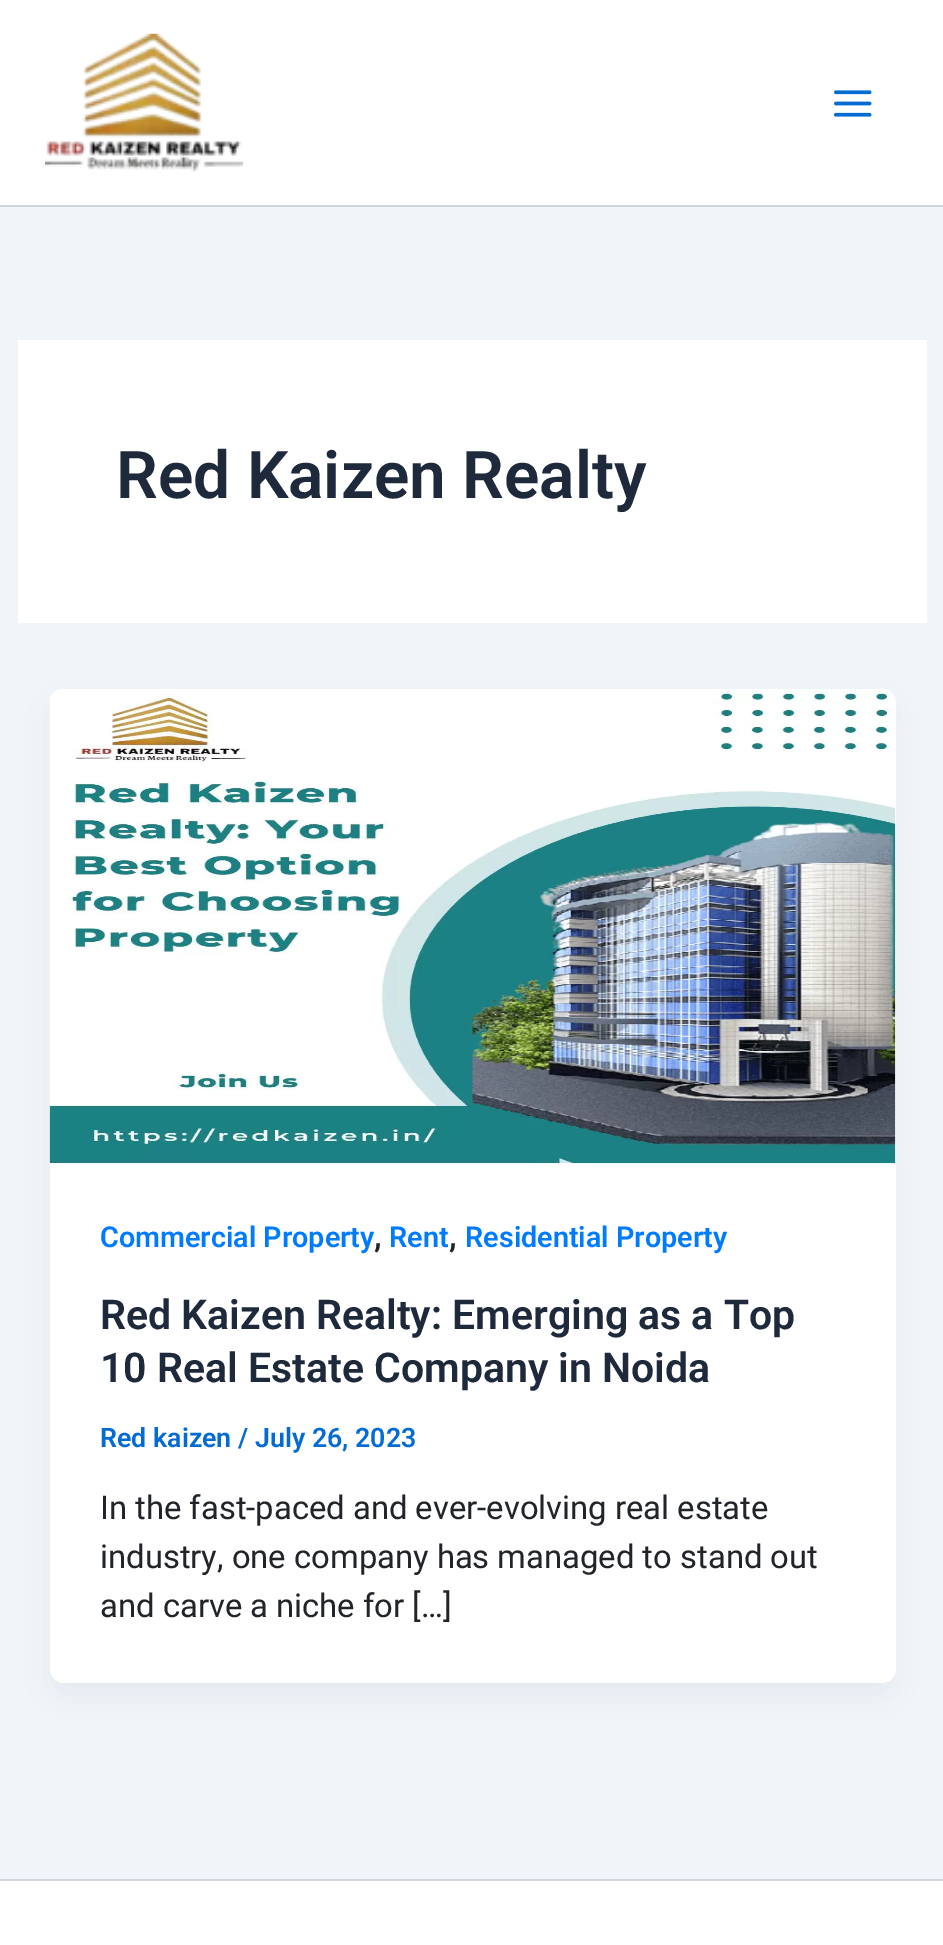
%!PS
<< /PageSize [943 1945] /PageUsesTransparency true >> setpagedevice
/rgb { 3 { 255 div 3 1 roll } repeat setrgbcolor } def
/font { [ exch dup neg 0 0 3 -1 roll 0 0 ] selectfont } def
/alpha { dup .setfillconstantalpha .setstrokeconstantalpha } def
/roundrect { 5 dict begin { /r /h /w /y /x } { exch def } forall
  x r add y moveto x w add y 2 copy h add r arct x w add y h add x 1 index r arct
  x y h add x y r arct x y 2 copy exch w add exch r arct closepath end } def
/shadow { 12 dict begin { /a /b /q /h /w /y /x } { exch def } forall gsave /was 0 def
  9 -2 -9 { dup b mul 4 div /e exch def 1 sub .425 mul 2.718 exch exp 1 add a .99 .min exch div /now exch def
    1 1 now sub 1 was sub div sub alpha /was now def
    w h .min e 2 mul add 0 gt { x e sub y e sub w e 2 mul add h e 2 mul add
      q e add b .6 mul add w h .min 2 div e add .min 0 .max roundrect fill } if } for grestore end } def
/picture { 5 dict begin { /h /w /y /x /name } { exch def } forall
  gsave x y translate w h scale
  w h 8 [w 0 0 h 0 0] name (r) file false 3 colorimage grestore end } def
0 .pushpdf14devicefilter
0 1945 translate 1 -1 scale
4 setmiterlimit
240 245 250 rgb
0 0 943 1945 rectfill
255 255 255 rgb
0 0 943 205 rectfill
209 213 219 rgb
0 205 943 2 rectfill
(img/1.rgb) 45 33 198 139 picture
(img/2.rgb) 834 90 38 27 picture
255 255 255 rgb
18 340 909 283 rectfill
16 24 40 rgb
54 707 837 985 9 17 0.05 shadow
255 255 255 rgb
50 689 846 994 14 roundrect fill
(img/3.rgb) 49 689 847 475 picture
0 1881 943 64 rectfill
209 213 219 rgb
0 1879 943 2 rectfill
/Roboto-SemiBold 65.75 font
30 41 59 rgb
116 498 moveto (Red Kaizen Realty) show
/Roboto-SemiBold 28.75 font
0 123 255 rgb
100 1247 moveto (Commercial Property) show
/Roboto-SemiBold 32.8 font
33 37 41 rgb
374 1247 moveto (,) show
/Roboto-SemiBold 28.75 font
0 123 255 rgb
389 1247 moveto (Rent) show
/Roboto-SemiBold 32.8 font
33 37 41 rgb
449 1247 moveto (,) show
/Roboto-SemiBold 28.75 font
0 123 255 rgb
465 1247 moveto (Residential Property) show
/Roboto-SemiBold 41 font
30 41 59 rgb
100 1329 moveto (Red Kaizen Realty: Emerging as a Top) show
100 1382 moveto (10 Real Estate Company in Noida) show
/Roboto-SemiBold 26.75 font
4 107 210 rgb
100 1447 moveto (Red kaizen / July 26, 2023) show
/Roboto-Regular 32.8 font
33 37 41 rgb
[
  [(In the fast-paced and ever-evolving real estate) 100 1519]
  [(industry, one company has managed to stand out) 100 1568]
  [(and carve a niche for […]) 100 1617]
] { aload pop moveto show } forall
.poppdf14devicefilter showpage
